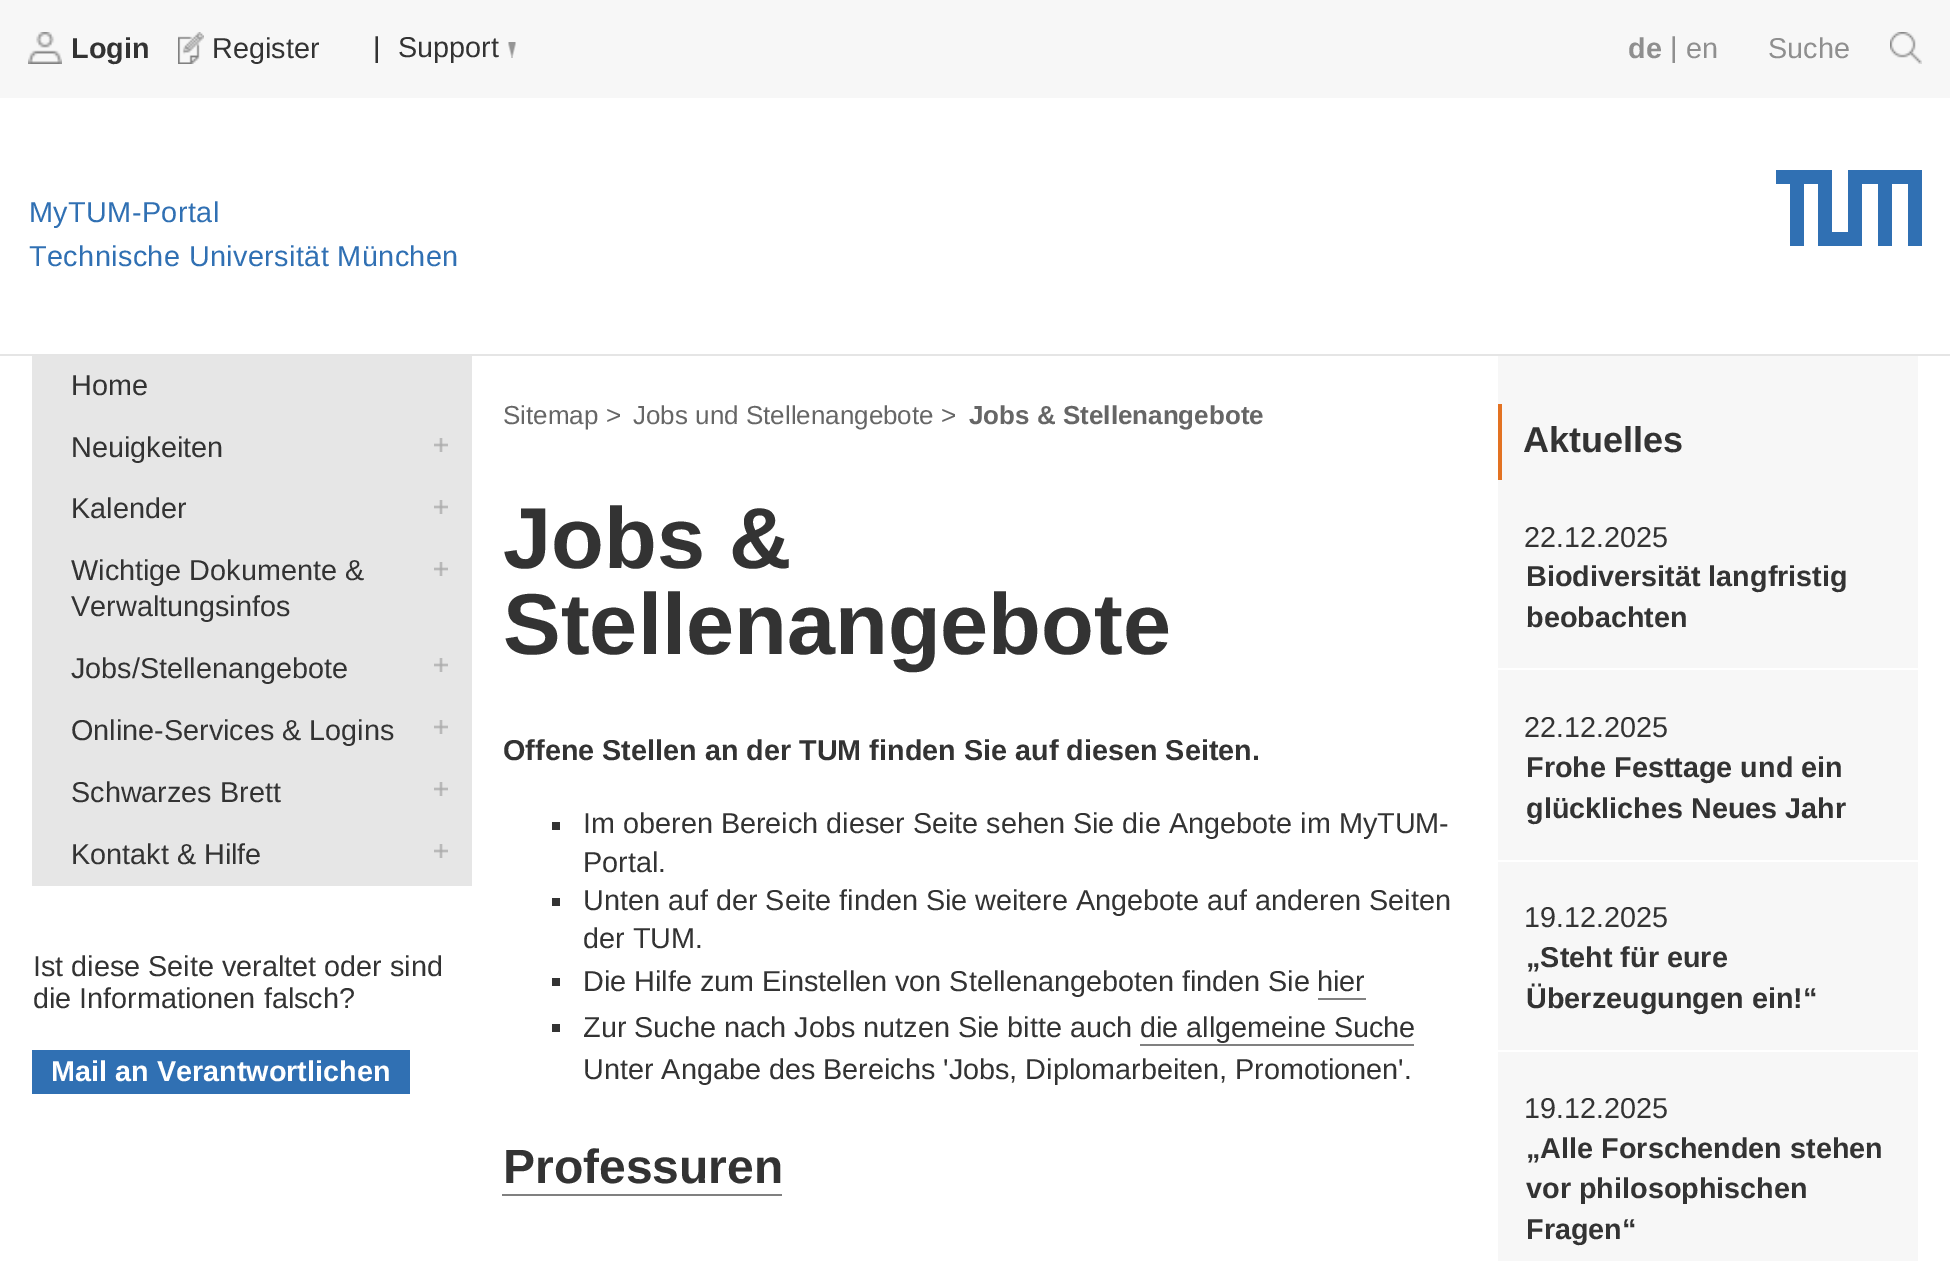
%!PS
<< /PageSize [1950 1261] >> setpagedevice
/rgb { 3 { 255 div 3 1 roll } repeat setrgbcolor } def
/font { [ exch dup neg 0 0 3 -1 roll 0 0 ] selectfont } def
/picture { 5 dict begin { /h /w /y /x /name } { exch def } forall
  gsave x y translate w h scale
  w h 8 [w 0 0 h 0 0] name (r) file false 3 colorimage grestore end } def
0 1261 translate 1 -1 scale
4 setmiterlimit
247 247 247 rgb
0 0 1950 1261 rectfill
(img/1.rgb) 28 32 34 32 picture
(img/2.rgb) 178 32 26 32 picture
(img/3.rgb) 508 42 8 16 picture
(img/4.rgb) 1890 32 32 32 picture
255 255 255 rgb
0 98 1950 256 rectfill
229 229 229 rgb
0 354 1950 2 rectfill
(img/5.rgb) 1776 170 146 76 picture
[
  [1918 356 32 905 255 255 255]
  [0 356 1498 905 255 255 255]
  [32 356 440 530 230 230 230]
] { aload pop rgb rectfill } forall
(img/6.rgb) 434 438 14 14 picture
(img/6.rgb) 434 500 14 14 picture
(img/6.rgb) 434 562 14 14 picture
(img/6.rgb) 434 658 14 14 picture
(img/6.rgb) 434 720 14 14 picture
(img/6.rgb) 434 782 14 14 picture
(img/6.rgb) 434 844 14 14 picture
[
  [34 1052 372 38 48 112 179]
  [32 1050 378 2 48 112 179]
  [406 1050 4 44 48 112 179]
  [32 1090 378 4 48 112 179]
  [32 1050 2 44 48 112 179]
  [552 822 8 8 51 51 51]
  [552 898 8 8 51 51 51]
  [552 978 8 8 51 51 51]
  [1318 998 48 2 128 128 128]
  [552 1024 8 8 51 51 51]
  [1140 1044 274 2 128 128 128]
  [502 1194 280 2 128 128 128]
  [1498 404 4 76 227 114 34]
  [1498 668 420 2 255 255 255]
  [1498 860 420 2 255 255 255]
  [1498 1050 420 2 255 255 255]
] { aload pop rgb rectfill } forall
/LiberationSans-Bold 28.8 font
51 51 51 rgb
71 58 moveto (Login) show
/LiberationSans-Regular 28.8 font
[
  [(Register) 212 58]
  [(|) 373 57]
  [(Support) 398 57]
] { aload pop moveto show } forall
/LiberationSans-Bold 28.8 font
143 143 143 rgb
1628 58 moveto (de) show
/LiberationSans-Regular 28.8 font
[
  [(|) 1670 57]
  [(en) 1686 58]
  [(Suche) 1768 58]
] { aload pop moveto show } forall
48 112 179 rgb
29 222 moveto 0.4 0 (MyTUM-Portal) ashow
29 266 moveto 0.4 0 (Technische Universität München) ashow
51 51 51 rgb
[
  [(Home) 71 395]
  [(Neuigkeiten) 71 457]
  [(Kalender) 71 518]
  [(Wichtige Dokumente &) 71 580]
  [(Verwaltungsinfos) 71 616]
  [(Jobs/Stellenangebote) 71 678]
  [(Online-Services & Logins) 71 740]
  [(Schwarzes Brett) 71 802]
  [(Kontakt & Hilfe) 71 864]
  [(Ist diese Seite veraltet oder sind) 33 976]
  [(die Informationen falsch?) 33 1008]
] { aload pop moveto show } forall
/LiberationSans-Bold 28.8 font
255 255 255 rgb
51 1081 moveto (Mail an Verantwortlichen) show
/LiberationSans-Regular 26 font
102 102 102 rgb
503 424 moveto (Sitemap >) show
633 424 moveto (Jobs und Stellenangebote >) show
/LiberationSans-Bold 26 font
969 424 moveto (Jobs & Stellenangebote) show
/LiberationSans-Bold 86.5 font
51 51 51 rgb
503 568 moveto (Jobs &) show
503 654 moveto (Stellenangebote) show
/LiberationSans-Bold 28.8 font
503 760 moveto (Offene Stellen an der TUM finden Sie auf diesen Seiten.) show
/LiberationSans-Regular 28.8 font
[
  [(Im oberen Bereich dieser Seite sehen Sie die Angebote im MyTUM-) 583 833]
  [(Portal.) 583 872]
  [(Unten auf der Seite finden Sie weitere Angebote auf anderen Seiten) 583 910]
  [(der TUM.) 583 948]
  [(Die Hilfe zum Einstellen von Stellenangeboten finden Sie) 583 991]
  [(hier) 1317 991]
  [(Zur Suche nach Jobs nutzen Sie bitte auch) 583 1037]
  [(die allgemeine Suche) 1140 1037]
  [(Unter Angabe des Bereichs 'Jobs, Diplomarbeiten, Promotionen'.) 583 1079]
] { aload pop moveto show } forall
/LiberationSans-Bold 48 font
503 1183 moveto (Professuren) show
/LiberationSans-Bold 36 font
1523 452 moveto (Aktuelles) show
/LiberationSans-Regular 28.8 font
1524 547 moveto (22.12.2025) show
/LiberationSans-Bold 28.8 font
1526 586 moveto (Biodiversität langfristig) show
1526 627 moveto (beobachten) show
/LiberationSans-Regular 28.8 font
1524 737 moveto (22.12.2025) show
/LiberationSans-Bold 28.8 font
1526 777 moveto (Frohe Festtage und ein) show
1526 818 moveto (glückliches Neues Jahr) show
/LiberationSans-Regular 28.8 font
1524 927 moveto (19.12.2025) show
/LiberationSans-Bold 28.8 font
1526 967 moveto („Steht für eure) show
1526 1008 moveto (Überzeugungen ein!“) show
/LiberationSans-Regular 28.8 font
1524 1118 moveto (19.12.2025) show
/LiberationSans-Bold 28.8 font
[
  [(„Alle Forschenden stehen) 1526 1158]
  [(vor philosophischen) 1526 1198]
  [(Fragen“) 1526 1239]
] { aload pop moveto show } forall
showpage
